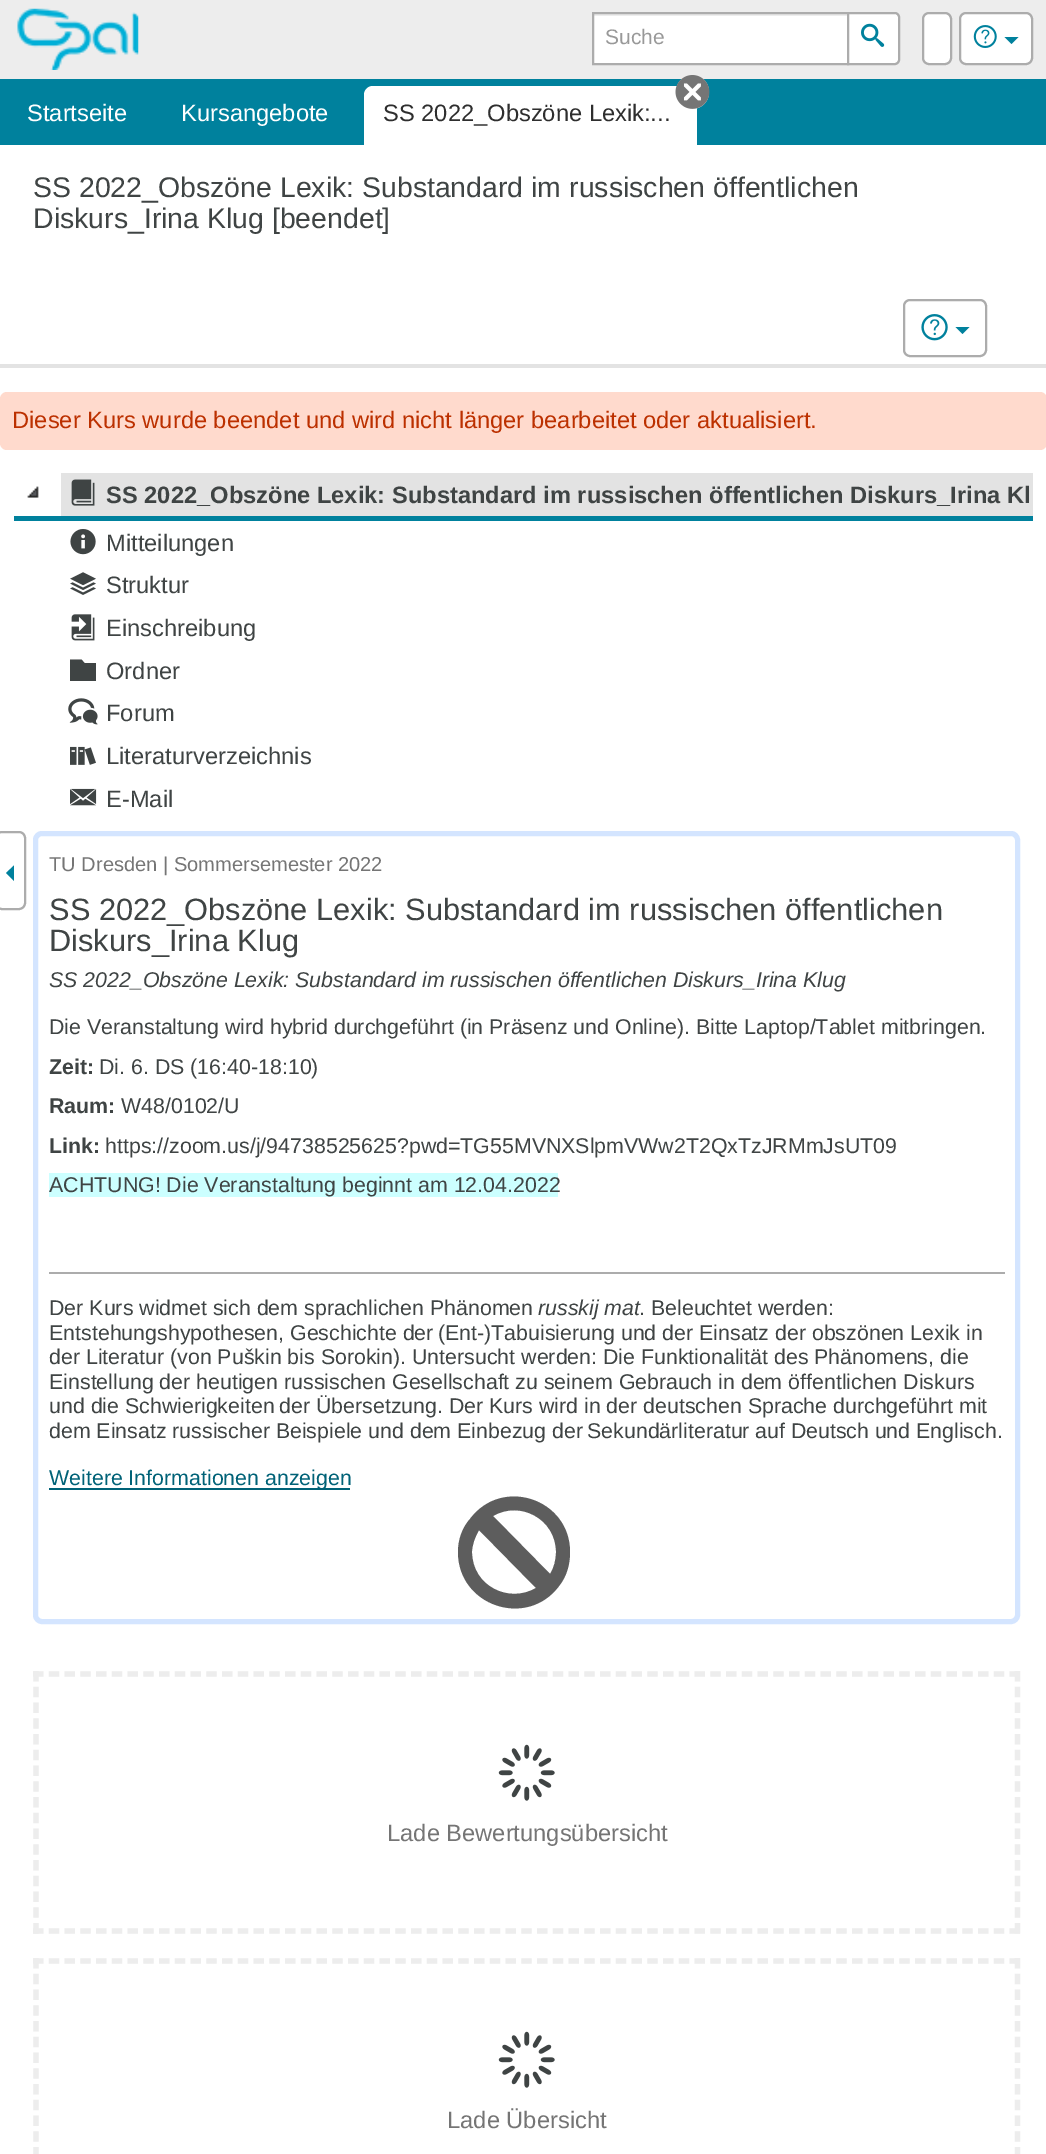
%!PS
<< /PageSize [1046 2154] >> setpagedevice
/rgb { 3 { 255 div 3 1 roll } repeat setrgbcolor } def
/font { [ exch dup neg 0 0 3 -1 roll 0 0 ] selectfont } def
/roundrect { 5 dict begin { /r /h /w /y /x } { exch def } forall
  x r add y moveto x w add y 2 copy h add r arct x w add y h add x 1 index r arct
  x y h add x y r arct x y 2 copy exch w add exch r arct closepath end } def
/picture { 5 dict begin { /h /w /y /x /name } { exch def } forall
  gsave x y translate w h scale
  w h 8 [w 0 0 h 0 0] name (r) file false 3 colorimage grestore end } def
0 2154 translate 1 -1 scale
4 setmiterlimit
255 255 255 rgb
0 0 1046 2154 rectfill
237 237 237 rgb
0 0 1046 79 rectfill
(img/1.rgb) 17 8 122 62 picture
255 255 255 rgb
594 16 253 47 rectfill
172 172 172 rgb
2 setlinewidth
593 13 255 51 rectstroke
255 255 255 rgb
848 13 moveto 895 13 lineto 897 13 899 15 899 17 curveto 899 60 lineto 899 62 897 64 895 64 curveto 848 64 lineto closepath gsave fill grestore
172 172 172 rgb
stroke
(img/2.rgb) 861 23 24 24 picture
255 255 255 rgb
923 13 28 51 6 roundrect gsave fill grestore
172 172 172 rgb
stroke
255 255 255 rgb
960 13 72 51 6 roundrect gsave fill grestore
172 172 172 rgb
stroke
(img/3.rgb) 973 25 24 23 picture
0 129 157 rgb
1004.5 37 moveto 1018.5 37 lineto 1011.5 44 lineto closepath fill
0 79 1046 66 rectfill
255 255 255 rgb
373 86 moveto 697 86 lineto 697 145 lineto 364 145 lineto 364 95 lineto 364 90 368 86 373 86 curveto closepath fill
676 75 33 34 16.5 roundrect fill
(img/4.rgb) 675 75 35 34 picture
227 227 227 rgb
0 364 1046 4 rectfill
172 172 172 rgb
904 300 82 56 6 roundrect stroke
(img/5.rgb) 921 314 27 27 picture
0 129 157 rgb
955.5 327 moveto 969.5 327 lineto 962.5 334 lineto closepath fill
255 218 205 rgb
0 392 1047 58 7 roundrect fill
(img/6.rgb) 27 486 12 12 picture
227 227 227 rgb
61 473 972 43 rectfill
(img/7.rgb) 71 479 24 27 picture
0 129 157 rgb
14 516 1019 5 rectfill
(img/8.rgb) 70 529 26 26 picture
(img/9.rgb) 70 572 26 23 picture
(img/10.rgb) 71 614 24 27 picture
63 68 68 rgb
81.5 659.5 moveto 84.5 663 lineto 96 663 lineto 96 681 lineto 70 681 lineto 70 659.5 lineto closepath fill
(img/11.rgb) 68 698 30 27 picture
(img/12.rgb) 70 746 26 19 picture
(img/13.rgb) 70 788 27 18 picture
172 172 172 rgb
-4 832 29 77 6 roundrect stroke
0 129 157 rgb
14 865.5 moveto 6 873 lineto 14 881 lineto closepath fill
212 229 255 rgb
5 setlinewidth
35.5 833.5 982 788 6.5 roundrect stroke
[
  [49 1272 956 2 172 172 172]
  [49 1173 509 24 204 255 255]
  [49 1488 301 2 0 98 119]
] { aload pop rgb rectfill } forall
93 93 93 rgb
458 1552 moveto 458 1606 527 1629 559 1586 curveto 567 1576 570 1564 570 1552 curveto 570 1499 502 1476 470 1519 curveto 462 1528 458 1540 458 1552 curveto closepath 556 1552 moveto 556 1560 554 1568 550 1574 curveto 493 1516 lineto 520 1500 556 1519 556 1552 curveto closepath 472 1552 moveto 472 1545 475 1537 479 1530 curveto 536 1588 lineto 509 1604 472 1586 472 1552 curveto closepath fill
(img/14.rgb) 498 1744 57 57 picture
237 237 237 rgb
5.2 setlinewidth
[10.5 5.25] 0 setdash
33 1674 moveto 1020 1674 lineto stroke
1017.5 1671 moveto 1017.5 1934 lineto stroke
33 1931 moveto 1020 1931 lineto stroke
36 1671 moveto 36 1934 lineto stroke
(img/14.rgb) 498 2031 57 57 picture
33 1961 moveto 1020 1961 lineto stroke
1017.5 1958 moveto 1017.5 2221 lineto stroke
36 1958 moveto 36 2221 lineto stroke
/LiberationSans-Regular 21 font
153 153 153 rgb
605 44 moveto (Suche) show
/LiberationSans-Regular 23.7 font
255 255 255 rgb
27 121 moveto (Startseite) show
181 121 moveto (Kursangebote) show
46 46 46 rgb
383 121 moveto (SS 2022_Obszöne Lexik:...) show
/LiberationSans-Regular 28.45 font
63 68 68 rgb
33 197 moveto (SS 2022_Obszöne Lexik: Substandard im russischen öffentlichen) show
33 228 moveto (Diskurs_Irina Klug [beendet]) show
/LiberationSans-Regular 23.7 font
188 48 0 rgb
12 428 moveto (Dieser Kurs wurde beendet und wird nicht länger bearbeitet oder aktualisiert.) show
/LiberationSans-Bold 23.7 font
63 68 68 rgb
106 503 moveto (SS 2022_Obszöne Lexik: Substandard im russischen öffentlichen Diskurs_Irina Kl) show
/LiberationSans-Regular 23.7 font
[
  [(Mitteilungen) 106 551]
  [(Struktur) 106 593]
  [(Einschreibung) 106 636]
  [(Ordner) 106 679]
  [(Forum) 106 721]
  [(Literaturverzeichnis) 106 764]
  [(E-Mail) 106 807]
] { aload pop moveto show } forall
/LiberationSans-Regular 20.1 font
117 117 117 rgb
49 871 moveto (TU Dresden | Sommersemester 2022) show
/LiberationSans-Regular 30.8 font
63 68 68 rgb
49 920 moveto (SS 2022_Obszöne Lexik: Substandard im russischen öffentlichen) show
49 951 moveto (Diskurs_Irina Klug) show
/LiberationSans-Italic 21.35 font
49 987 moveto -0.25 0 32 (SS 2022_Obszöne Lexik: Substandard im russischen öffentlichen Diskurs_Irina Klug) widthshow
/LiberationSans-Regular 21.35 font
49 1034 moveto (Die Veranstaltung wird hybrid durchgeführt \(in Präsenz und Online\). Bitte Laptop/Tablet mitbringen.) show
/LiberationSans-Bold 21.35 font
49 1074 moveto (Zeit:) show
/LiberationSans-Regular 21.35 font
99 1074 moveto (Di. 6. DS \(16:40-18:10\)) show
/LiberationSans-Bold 21.35 font
49 1113 moveto (Raum:) show
/LiberationSans-Regular 21.35 font
121 1113 moveto (W48/0102/U) show
/LiberationSans-Bold 21.35 font
49 1153 moveto (Link:) show
/LiberationSans-Regular 21.35 font
[
  [(https://zoom.us/j/94738525625?pwd=TG55MVNXSlpmVWw2T2QxTzJRMmJsUT09) 105 1153]
  [(ACHTUNG! Die Veranstaltung beginnt am 12.04.2022) 49 1192]
  [(Der Kurs widmet sich dem sprachlichen Phänomen) 49 1315]
] { aload pop moveto show } forall
/LiberationSans-Italic 21.35 font
538 1315 moveto (russkij mat) show
/LiberationSans-Regular 21.35 font
[
  [(. Beleuchtet werden:) 639 1315]
  [(Entstehungshypothesen, Geschichte der) 49 1340]
  [(\(Ent-\)Tabuisierung und der Einsatz der obszönen Lexik in) 438 1340]
  [(der Literatur \(von Puškin bis Sorokin\). Untersucht werden: Die Funktionalität des Phänomens, die) 49 1364]
  [(Einstellung der heutigen russischen Gesellschaft zu seinem Gebrauch in dem öffentlichen Diskurs) 49 1389]
  [(und die Schwierigkeiten) 49 1413]
  [(der Übersetzung. Der Kurs wird in der deutschen Sprache durchgeführt mit) 279 1413]
  [(dem Einsatz russischer Beispiele und dem Einbezug der) 49 1438]
] { aload pop moveto show } forall
587 1438 moveto -0.25 0 32 (Sekundärliteratur auf Deutsch und Englisch.) widthshow
0 98 119 rgb
49 1485 moveto (Weitere Informationen anzeigen) show
/LiberationSans-Regular 23.7 font
117 117 117 rgb
387 1841 moveto (Lade Bewertungsübersicht) show
447 2128 moveto (Lade Übersicht) show
showpage
